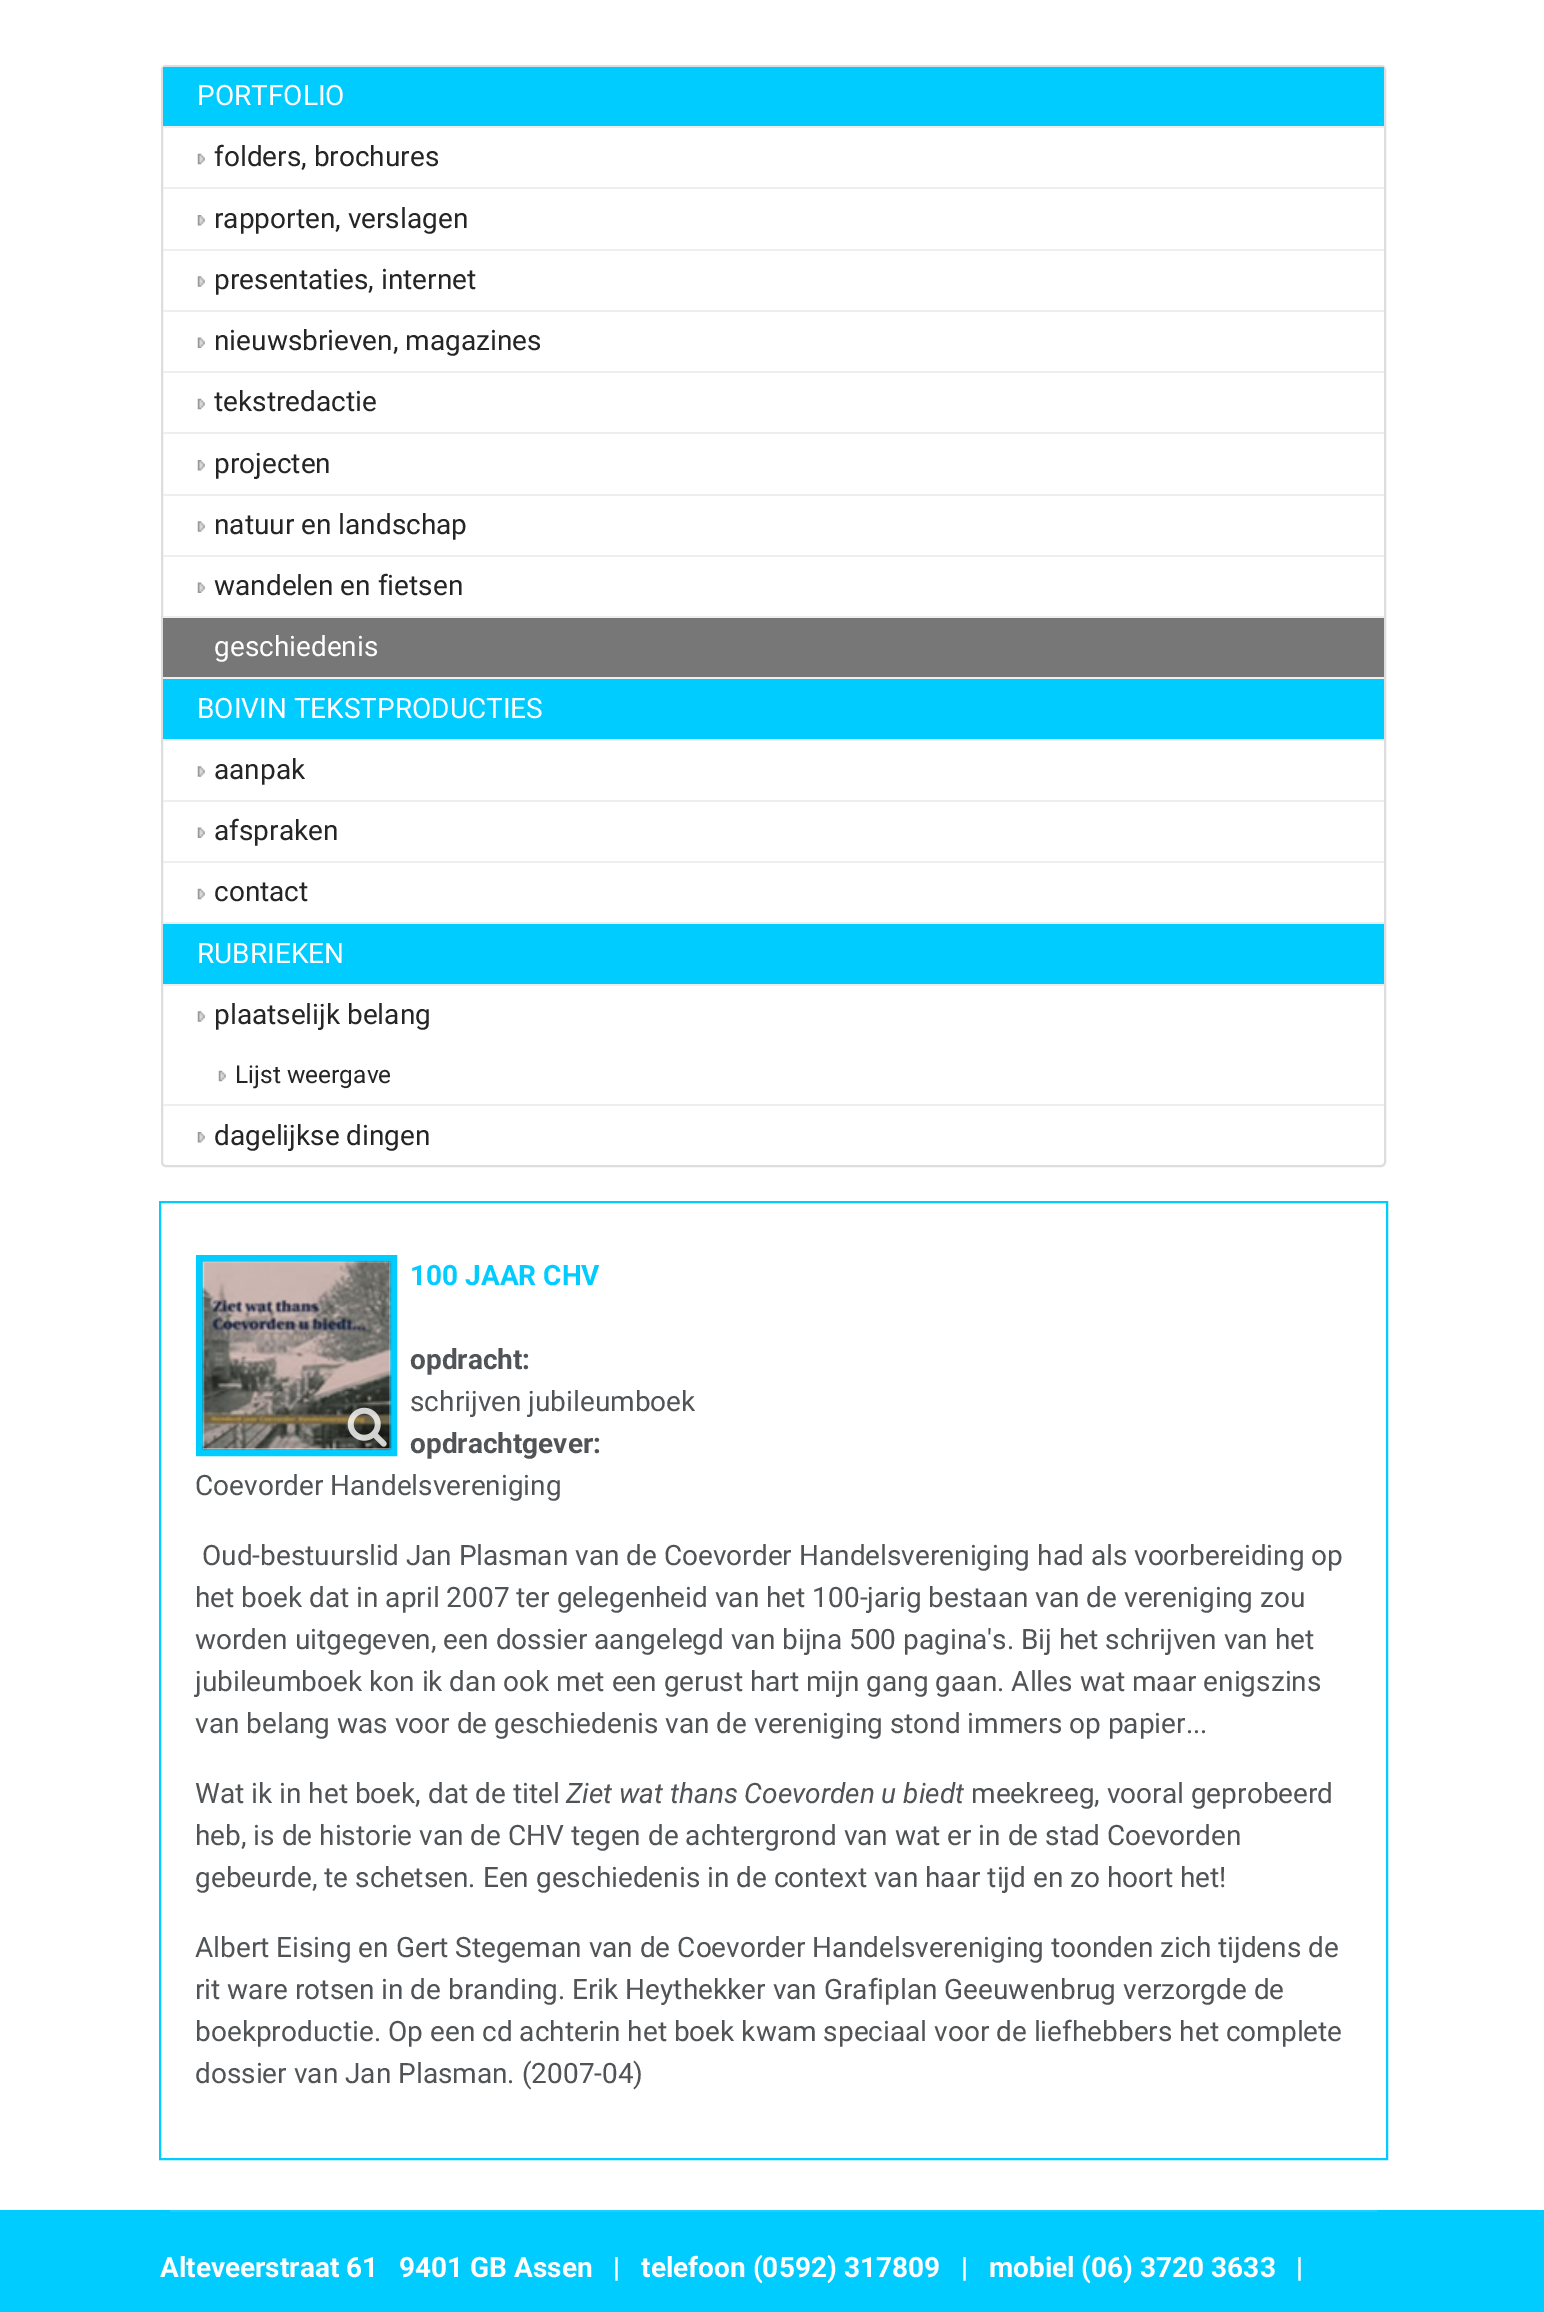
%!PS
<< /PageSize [1544 2312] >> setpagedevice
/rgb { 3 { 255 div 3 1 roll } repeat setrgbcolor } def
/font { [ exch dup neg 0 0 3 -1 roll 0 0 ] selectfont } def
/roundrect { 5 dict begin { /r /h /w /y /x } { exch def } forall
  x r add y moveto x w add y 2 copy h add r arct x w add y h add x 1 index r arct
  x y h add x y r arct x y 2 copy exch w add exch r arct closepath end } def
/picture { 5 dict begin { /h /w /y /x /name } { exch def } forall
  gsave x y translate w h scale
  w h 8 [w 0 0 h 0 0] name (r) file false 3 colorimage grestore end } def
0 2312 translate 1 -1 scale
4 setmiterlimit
255 255 255 rgb
0 0 1544 2312 rectfill
221 221 221 rgb
2 setlinewidth
162 66 1223 1100 4 roundrect stroke
[
  [163 67 1221 59 0 204 255]
  [163 126 1221 2 238 238 238]
  [163 187 1221 2 238 238 238]
] { aload pop rgb rectfill } forall
(img/1.rgb) 197 153 8 12 picture
163 249 1221 2 rectfill
(img/2.rgb) 197 215 8 11 picture
163 310 1221 2 rectfill
(img/3.rgb) 197 276 8 11 picture
163 371 1221 2 rectfill
(img/4.rgb) 197 337 8 11 picture
163 432 1221 2 rectfill
(img/1.rgb) 197 398 8 12 picture
163 494 1221 2 rectfill
(img/2.rgb) 197 460 8 11 picture
163 555 1221 2 rectfill
(img/3.rgb) 197 521 8 11 picture
163 616 1221 2 rectfill
(img/4.rgb) 197 582 8 11 picture
[
  [163 677 1221 2 238 238 238]
  [163 618 1221 59 119 119 119]
  [163 679 1221 60 0 204 255]
  [163 739 1221 2 238 238 238]
  [163 800 1221 2 238 238 238]
] { aload pop rgb rectfill } forall
(img/3.rgb) 197 766 8 11 picture
163 861 1221 2 rectfill
(img/4.rgb) 197 827 8 11 picture
163 922 1221 2 rectfill
(img/1.rgb) 197 888 8 12 picture
[
  [163 924 1221 60 0 204 255]
  [163 984 1221 2 238 238 238]
  [163 1104 1221 2 238 238 238]
] { aload pop rgb rectfill } forall
(img/3.rgb) 197 1011 8 11 picture
(img/1.rgb) 218 1070 8 12 picture
(img/2.rgb) 197 1132 8 11 picture
0 204 255 rgb
160 1202 1227 957 rectstroke
7 setlinewidth
199.5 1258.5 194 194 rectstroke
(img/5.rgb) 202 1260 190 191 picture
(img/6.rgb) 347 1407 40 40 picture
0 2210 1544 102 rectfill
26 209 255 rgb
170 2210 1207 2 rectfill
/Roboto-Regular 28 font
255 255 255 rgb
197 105 moveto (PORTFOLIO) show
37 37 37 rgb
[
  [(folders, brochures) 214 166]
  [(rapporten, verslagen) 214 228]
  [(presentaties, internet) 214 289]
  [(nieuwsbrieven, magazines) 214 350]
  [(tekstredactie) 214 411]
  [(projecten) 214 473]
  [(natuur en landschap) 214 534]
  [(wandelen en fietsen) 214 595]
] { aload pop moveto show } forall
255 255 255 rgb
214 656 moveto (geschiedenis) show
197 718 moveto (BOIVIN TEKSTPRODUCTIES) show
37 37 37 rgb
[
  [(aanpak) 214 779]
  [(afspraken) 214 840]
  [(contact) 214 901]
] { aload pop moveto show } forall
255 255 255 rgb
197 963 moveto (RUBRIEKEN) show
37 37 37 rgb
214 1024 moveto (plaatselijk belang) show
/Roboto-Regular 24.5 font
235 1083 moveto (Lijst weergave) show
/Roboto-Regular 28 font
214 1145 moveto (dagelijkse dingen) show
/Roboto-Bold 28 font
0 204 255 rgb
410 1285 moveto (100 JAAR CHV) show
81 84 86 rgb
410 1369 moveto (opdracht:) show
/Roboto-Regular 28 font
410 1411 moveto (schrijven jubileumboek) show
/Roboto-Bold 28 font
410 1453 moveto (opdrachtgever:) show
/Roboto-Regular 28 font
[
  [(Coevorder Handelsvereniging) 195 1495]
  [(Oud-bestuurslid Jan Plasman van de Coevorder Handelsvereniging had als voorbereiding op) 202 1565]
  [(het boek dat in april 2007 ter gelegenheid van het 100-jarig bestaan van de vereniging zou) 195 1607]
  [(worden uitgegeven, een dossier aangelegd van bijna 500 pagina's. Bij het schrijven van het) 195 1649]
  [(jubileumboek kon ik dan ook met een gerust hart mijn gang gaan. Alles wat maar enigszins) 195 1691]
  [(van belang was voor de geschiedenis van de vereniging stond immers op papier...) 195 1733]
  [(Wat ik in het boek, dat de titel) 195 1803]
] { aload pop moveto show } forall
/Roboto-Italic 28 font
566 1803 moveto (Ziet wat thans Coevorden u biedt) show
/Roboto-Regular 28 font
[
  [(meekreeg, vooral geprobeerd) 971 1803]
  [(heb, is de historie van de CHV tegen de achtergrond van wat er in de stad Coevorden) 195 1845]
  [(gebeurde, te schetsen. Een geschiedenis in de context van haar tijd en zo hoort het!) 195 1887]
  [(Albert Eising en Gert Stegeman van de Coevorder Handelsvereniging toonden zich tijdens de) 195 1957]
  [(rit ware rotsen in de branding. Erik Heythekker van Grafiplan Geeuwenbrug verzorgde de) 195 1999]
  [(boekproductie. Op een cd achterin het boek kwam speciaal voor de liefhebbers het complete) 195 2041]
  [(dossier van Jan Plasman. \(2007-04\)) 195 2083]
] { aload pop moveto show } forall
/Roboto-Bold 28 font
255 255 255 rgb
160 2277 moveto (Alteveerstraat 61   9401 GB Assen   |   telefoon \(0592\) 317809   |   mobiel \(06\) 3720 3633   |) show
showpage
